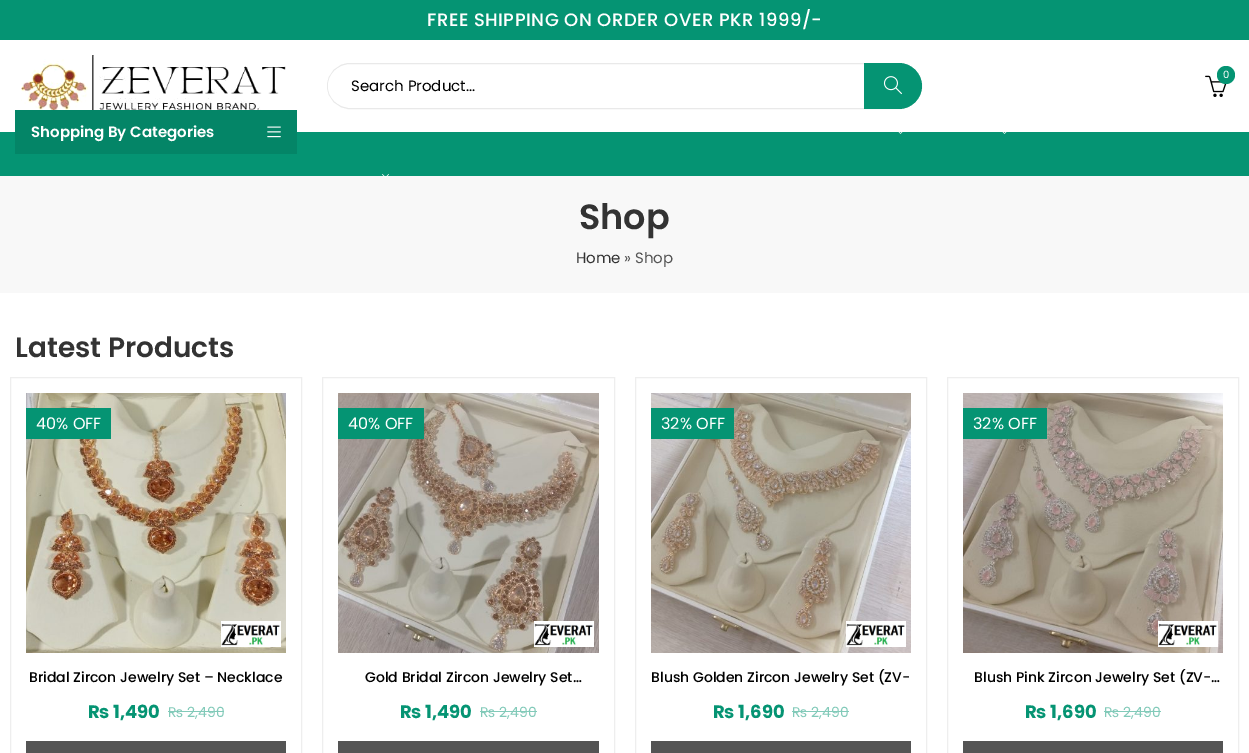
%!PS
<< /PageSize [1249 753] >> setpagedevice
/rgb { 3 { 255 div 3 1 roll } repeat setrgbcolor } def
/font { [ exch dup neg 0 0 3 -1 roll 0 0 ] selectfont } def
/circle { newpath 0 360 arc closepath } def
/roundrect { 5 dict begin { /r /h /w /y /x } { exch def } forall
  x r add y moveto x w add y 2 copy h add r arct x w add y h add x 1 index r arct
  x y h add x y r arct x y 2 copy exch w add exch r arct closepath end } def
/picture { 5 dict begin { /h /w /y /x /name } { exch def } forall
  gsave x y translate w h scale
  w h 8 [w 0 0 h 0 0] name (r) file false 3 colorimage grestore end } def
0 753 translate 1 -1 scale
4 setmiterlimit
255 255 255 rgb
0 0 1249 753 rectfill
5 148 115 rgb
0 0 1249 40 rectfill
(img/1.rgb) 21 55 265 55 picture
(img/2.rgb) 1205 75 22 22 picture
1226 75 9 circle fill
233 233 233 rgb
327.5 63.5 594 45 22.5 roundrect stroke
255 255 255 rgb
349 65 moveto 865 65 lineto 865 107 lineto 349 107 lineto 337.5 107 328 97.5 328 86 curveto 328 74.5 337.5 65 349 65 curveto closepath fill
5 148 115 rgb
864 63 moveto 899 63 lineto 911.5 63 922 73.5 922 86 curveto 922 98.5 911.5 109 899 109 curveto 864 109 lineto closepath fill
(img/3.rgb) 883 76 19 19 picture
0 132 1249 44 rectfill
4 133 103 rgb
15 110 282 44 rectfill
(img/4.rgb) 267 126 14 12 picture
(img/5.rgb) 898 132 5 2 picture
(img/5.rgb) 1002 132 5 2 picture
248 248 248 rgb
0 176 1249 117 rectfill
(img/6.rgb) 382 174 7 4 picture
238 238 238 rgb
10.5 377.5 291 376 rectstroke
(img/7.rgb) 26 393 260 260 picture
5 148 115 rgb
26 408 85 31 rectfill
(img/8.rgb) 221 621 60 26 picture
130 202 185 rgb
168 711 56 1 rectfill
84 84 84 rgb
26 741 260 12 rectfill
238 238 238 rgb
322.5 377.5 292 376 rectstroke
(img/9.rgb) 338 393 261 260 picture
5 148 115 rgb
338 408 86 31 rectfill
(img/10.rgb) 534 621 60 26 picture
130 202 185 rgb
480 711 57 1 rectfill
84 84 84 rgb
338 741 261 12 rectfill
238 238 238 rgb
635.5 377.5 291 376 rectstroke
(img/11.rgb) 651 393 260 260 picture
5 148 115 rgb
651 408 83 31 rectfill
(img/12.rgb) 846 621 60 26 picture
130 202 185 rgb
792 711 57 1 rectfill
84 84 84 rgb
651 741 260 12 rectfill
238 238 238 rgb
947.5 377.5 291 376 rectstroke
(img/13.rgb) 963 393 260 260 picture
5 148 115 rgb
963 408 84 31 rectfill
(img/12.rgb) 1158 621 60 26 picture
130 202 185 rgb
1104 711 57 1 rectfill
84 84 84 rgb
963 741 260 12 rectfill
/Poppins-Medium 18 font
255 255 255 rgb
427 26 moveto 0.5 0 (FREE SHIPPING ON ORDER OVER PKR 1999/-) ashow
/Poppins-Regular 10 font
1223 78 moveto (0) show
/Poppins-Regular 15 font
0 0 0 rgb
351 91 moveto (Search Product...) show
/Poppins-SemiBold 15 font
255 255 255 rgb
31 137 moveto (Shopping By Categories) show
/Poppins-SemiBold 35 font
51 51 51 rgb
579 229 moveto (Shop) show
/Poppins-Regular 15 font
576 263 moveto (Home) show
85 85 85 rgb
624 263 moveto (» Shop) show
/Poppins-SemiBold 28 font
51 51 51 rgb
15 357 moveto (Latest Products) show
/Poppins-Regular 16 font
255 255 255 rgb
36 429 moveto (40% OFF) show
/Poppins-Medium 14 font
0 0 0 rgb
29 682 moveto (Bridal Zircon Jewelry Set – Necklace) show
/Poppins-Bold 18 font
5 148 115 rgb
88 718 moveto (₨ 1,490) show
/Poppins-Regular 14 font
130 202 185 rgb
168 717 moveto (₨ 2,490) show
/Poppins-Regular 16 font
255 255 255 rgb
348 429 moveto (40% OFF) show
/Poppins-Medium 14 font
0 0 0 rgb
365 682 moveto (Gold Bridal Zircon Jewelry Set…) show
/Poppins-Bold 18 font
5 148 115 rgb
400 718 moveto (₨ 1,490) show
/Poppins-Regular 14 font
130 202 185 rgb
480 717 moveto (₨ 2,490) show
/Poppins-Regular 16 font
255 255 255 rgb
661 429 moveto (32% OFF) show
/Poppins-Medium 14 font
0 0 0 rgb
651 682 moveto (Blush Golden Zircon Jewelry Set \(ZV-) show
/Poppins-Bold 18 font
5 148 115 rgb
713 718 moveto (₨ 1,690) show
/Poppins-Regular 14 font
130 202 185 rgb
792 717 moveto (₨ 2,490) show
/Poppins-Regular 16 font
255 255 255 rgb
973 429 moveto (32% OFF) show
/Poppins-Medium 14 font
0 0 0 rgb
974 682 moveto (Blush Pink Zircon Jewelry Set \(ZV-…) show
/Poppins-Bold 18 font
5 148 115 rgb
1025 718 moveto (₨ 1,690) show
/Poppins-Regular 14 font
130 202 185 rgb
1104 717 moveto (₨ 2,490) show
showpage
